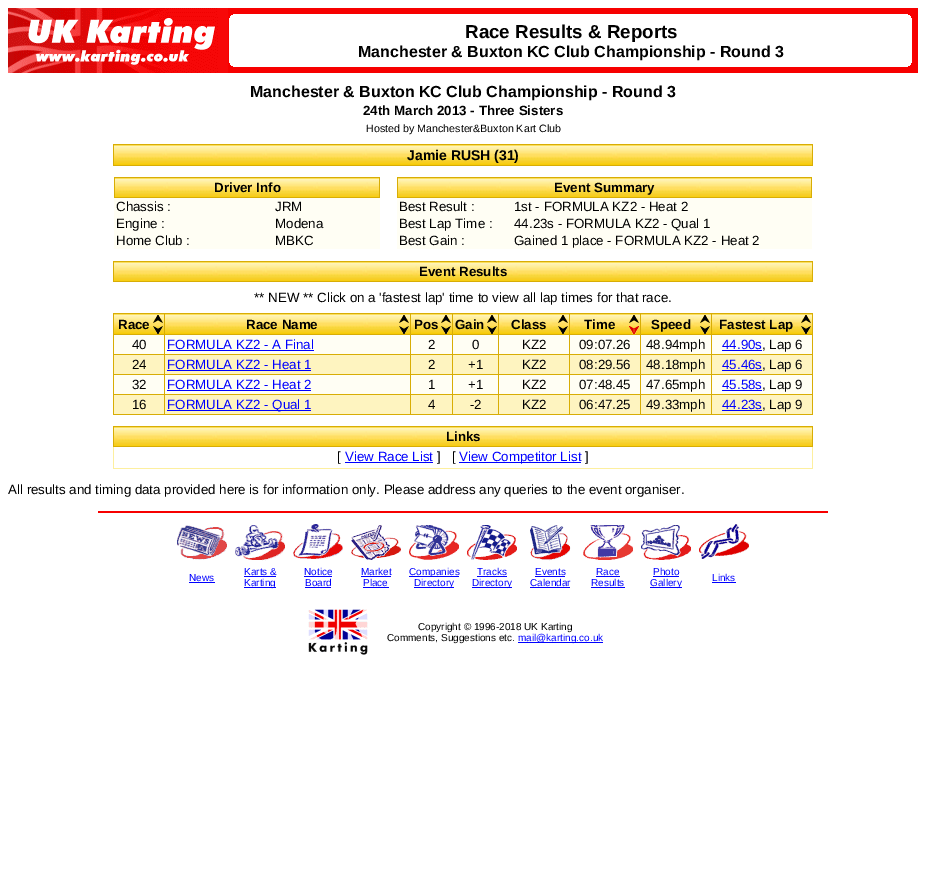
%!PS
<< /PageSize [926 896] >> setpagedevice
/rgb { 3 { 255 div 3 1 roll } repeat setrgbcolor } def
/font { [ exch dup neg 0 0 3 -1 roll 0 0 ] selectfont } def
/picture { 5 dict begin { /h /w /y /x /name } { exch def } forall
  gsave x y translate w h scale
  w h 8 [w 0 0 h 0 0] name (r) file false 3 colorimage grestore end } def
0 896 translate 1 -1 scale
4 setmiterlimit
255 255 255 rgb
0 0 926 896 rectfill
(img/1.rgb) 8 8 220 65 picture
(img/2.rgb) 228 8 5 65 picture
(img/3.rgb) 228 14 5 53 picture
(img/4.rgb) 233 8 675 65 picture
(img/5.rgb) 908 8 10 65 picture
(img/6.rgb) 114 145 698 20 picture
[
  [113 144 700 1 216 173 5]
  [812 144 1 22 216 173 5]
  [113 165 700 1 216 173 5]
  [113 144 1 22 216 173 5]
  [114 198 266 51 255 254 244]
] { aload pop rgb rectfill } forall
(img/7.rgb) 115 178 264 19 picture
[
  [114 177 266 1 216 173 5]
  [379 177 1 21 216 173 5]
  [114 197 266 1 216 173 5]
  [114 177 1 21 216 173 5]
  [397 198 415 51 255 254 244]
] { aload pop rgb rectfill } forall
(img/8.rgb) 398 178 413 19 picture
[
  [397 177 415 1 216 173 5]
  [811 177 1 21 216 173 5]
  [397 197 415 1 216 173 5]
  [397 177 1 21 216 173 5]
] { aload pop rgb rectfill } forall
(img/9.rgb) 114 262 698 19 picture
[
  [113 261 700 1 216 173 5]
  [812 261 1 21 216 173 5]
  [113 281 700 1 216 173 5]
  [113 261 1 21 216 173 5]
  [114 335 698 59 255 254 244]
] { aload pop rgb rectfill } forall
(img/10.rgb) 114 314 50 20 picture
[
  [711 313 102 1 216 173 5]
  [711 334 102 1 216 173 5]
  [711 354 102 1 216 173 5]
  [711 374 102 1 216 173 5]
  [711 394 102 1 216 173 5]
  [812 394 1 21 216 173 5]
  [711 414 102 1 216 173 5]
  [711 394 1 21 216 173 5]
  [640 394 72 1 216 173 5]
  [711 374 1 21 216 173 5]
  [640 374 72 1 216 173 5]
  [711 354 1 21 216 173 5]
  [640 354 72 1 216 173 5]
  [711 334 1 21 216 173 5]
  [640 334 72 1 216 173 5]
  [711 313 1 22 216 173 5]
  [640 313 72 1 216 173 5]
  [640 414 72 1 216 173 5]
  [640 394 1 21 216 173 5]
  [569 394 72 1 216 173 5]
  [640 374 1 21 216 173 5]
  [569 374 72 1 216 173 5]
  [640 354 1 21 216 173 5]
  [569 354 72 1 216 173 5]
  [640 334 1 21 216 173 5]
  [569 334 72 1 216 173 5]
  [640 313 1 22 216 173 5]
  [569 313 72 1 216 173 5]
  [569 414 72 1 216 173 5]
  [569 394 1 21 216 173 5]
  [498 394 72 1 216 173 5]
  [569 374 1 21 216 173 5]
  [498 374 72 1 216 173 5]
  [569 354 1 21 216 173 5]
  [498 354 72 1 216 173 5]
  [569 334 1 21 216 173 5]
  [498 334 72 1 216 173 5]
  [569 313 1 22 216 173 5]
  [498 313 72 1 216 173 5]
  [498 414 72 1 216 173 5]
  [498 394 1 21 216 173 5]
  [452 394 47 1 216 173 5]
  [498 374 1 21 216 173 5]
  [452 374 47 1 216 173 5]
  [498 354 1 21 216 173 5]
  [452 354 47 1 216 173 5]
  [498 334 1 21 216 173 5]
  [452 334 47 1 216 173 5]
  [498 313 1 22 216 173 5]
  [452 313 47 1 216 173 5]
  [452 414 47 1 216 173 5]
  [452 394 1 21 216 173 5]
  [410 394 43 1 216 173 5]
  [452 374 1 21 216 173 5]
  [410 374 43 1 216 173 5]
  [452 354 1 21 216 173 5]
  [410 354 43 1 216 173 5]
  [452 334 1 21 216 173 5]
  [410 334 43 1 216 173 5]
  [452 313 1 22 216 173 5]
  [410 313 43 1 216 173 5]
  [410 414 43 1 216 173 5]
  [410 394 1 21 216 173 5]
  [164 394 247 1 216 173 5]
  [410 374 1 21 216 173 5]
  [164 374 247 1 216 173 5]
  [410 354 1 21 216 173 5]
  [164 354 247 1 216 173 5]
  [410 334 1 21 216 173 5]
  [164 334 247 1 216 173 5]
  [410 313 1 22 216 173 5]
  [164 313 247 1 216 173 5]
  [164 414 247 1 216 173 5]
  [164 394 1 21 216 173 5]
  [113 394 52 1 216 173 5]
  [164 374 1 21 216 173 5]
  [113 374 52 1 216 173 5]
  [164 354 1 21 216 173 5]
  [113 354 52 1 216 173 5]
  [164 334 1 21 216 173 5]
  [113 334 52 1 216 173 5]
  [164 313 1 22 216 173 5]
  [113 313 52 1 216 173 5]
  [113 414 52 1 216 173 5]
  [113 394 1 21 216 173 5]
  [113 374 1 21 216 173 5]
  [113 354 1 21 216 173 5]
  [113 334 1 21 216 173 5]
  [113 313 1 22 216 173 5]
] { aload pop rgb rectfill } forall
(img/11.rgb) 153 315 10 8 picture
(img/12.rgb) 153 326 10 8 picture
(img/13.rgb) 165 314 245 20 picture
(img/14.rgb) 399 315 10 8 picture
(img/15.rgb) 399 326 10 8 picture
(img/16.rgb) 411 314 41 20 picture
(img/17.rgb) 441 315 10 8 picture
(img/18.rgb) 441 326 10 8 picture
(img/19.rgb) 453 314 45 20 picture
(img/14.rgb) 487 315 10 8 picture
(img/15.rgb) 487 326 10 8 picture
(img/20.rgb) 499 314 70 20 picture
(img/21.rgb) 558 315 10 8 picture
(img/22.rgb) 558 326 10 8 picture
(img/20.rgb) 570 314 70 20 picture
(img/21.rgb) 629 315 10 8 picture
(img/23.rgb) 629 326 10 8 picture
(img/24.rgb) 641 314 70 20 picture
(img/21.rgb) 700 315 10 8 picture
(img/22.rgb) 700 326 10 8 picture
(img/25.rgb) 712 314 100 20 picture
[
  [812 374 1 21 216 173 5]
  [812 354 1 21 216 173 5]
  [812 334 1 21 216 173 5]
  [812 313 1 22 216 173 5]
] { aload pop rgb rectfill } forall
(img/11.rgb) 801 315 10 8 picture
(img/12.rgb) 801 326 10 8 picture
[
  [167 350 147 1 0 0 255]
  [722 350 40 1 0 0 255]
  [114 355 50 19 254 244 192]
  [165 355 245 19 254 244 192]
  [167 370 144 1 0 0 255]
  [411 355 41 19 254 244 192]
  [453 355 45 19 254 244 192]
  [499 355 70 19 254 244 192]
  [570 355 70 19 254 244 192]
  [641 355 70 19 254 244 192]
  [712 355 100 19 254 244 192]
  [722 370 40 1 0 0 255]
  [167 390 144 1 0 0 255]
  [722 390 40 1 0 0 255]
  [114 395 50 19 254 244 192]
  [165 395 245 19 254 244 192]
  [167 410 144 1 0 0 255]
  [411 395 41 19 254 244 192]
  [453 395 45 19 254 244 192]
  [499 395 70 19 254 244 192]
  [570 395 70 19 254 244 192]
  [641 395 70 19 254 244 192]
  [712 395 100 19 254 244 192]
  [722 410 40 1 0 0 255]
] { aload pop rgb rectfill } forall
(img/9.rgb) 114 427 698 19 picture
[
  [113 426 700 1 216 173 5]
  [812 446 1 23 253 239 159]
  [812 426 1 21 216 173 5]
  [113 468 700 1 253 239 159]
  [113 446 1 23 253 239 159]
  [113 446 700 1 216 173 5]
  [113 426 1 21 216 173 5]
  [345 462 88 1 0 0 255]
  [459 462 122 1 0 0 255]
  [98 511 730 2 247 0 0]
] { aload pop rgb rectfill } forall
(img/26.rgb) 177 525 50 35 picture
(img/27.rgb) 235 525 50 36 picture
(img/28.rgb) 293 524 50 35 picture
(img/29.rgb) 351 525 50 35 picture
(img/30.rgb) 409 525 50 35 picture
(img/31.rgb) 467 525 50 35 picture
(img/32.rgb) 530 525 41 36 picture
(img/33.rgb) 583 525 50 35 picture
(img/34.rgb) 641 525 50 35 picture
(img/35.rgb) 699 524 50 35 picture
[
  [189 582 26 1 0 0 255]
  [244 576 32 1 0 0 255]
  [244 587 32 1 0 0 255]
  [304 576 28 1 0 0 255]
  [305 587 26 1 0 0 255]
  [361 576 30 1 0 0 255]
  [363 587 26 1 0 0 255]
  [409 576 50 1 0 0 255]
  [414 587 40 1 0 0 255]
  [477 576 30 1 0 0 255]
  [472 587 40 1 0 0 255]
  [535 576 30 1 0 0 255]
  [530 587 40 1 0 0 255]
  [596 576 24 1 0 0 255]
  [591 587 34 1 0 0 255]
  [653 576 26 1 0 0 255]
  [650 587 32 1 0 0 255]
  [712 582 24 1 0 0 255]
] { aload pop rgb rectfill } forall
(img/36.rgb) 308 609 60 46 picture
518 642 85 1 rectfill
/LiberationSans-Bold 18.75 font
0 0 0 rgb
465 38 moveto (Race Results & Reports) show
/LiberationSans-Bold 16 font
358 57 moveto (Manchester & Buxton KC Club Championship - Round 3) show
250 97 moveto (Manchester & Buxton KC Club Championship - Round 3) show
/LiberationSans-Bold 13.33 font
363 115 moveto (24th March 2013 - Three Sisters) show
/LiberationSans-Regular 10.7 font
366 132 moveto (Hosted by Manchester&Buxton Kart Club) show
/LiberationSans-Bold 14 font
407 160 moveto (Jamie RUSH \(31\)) show
/LiberationSans-Bold 13.33 font
214 192 moveto (Driver Info) show
/LiberationSans-Regular 13.33 font
[
  [(Chassis :) 116 211]
  [(JRM) 275 211]
  [(Engine :) 116 228]
  [(Modena) 275 228]
  [(Home Club :) 116 245]
  [(MBKC) 275 245]
] { aload pop moveto show } forall
/LiberationSans-Bold 13.33 font
554 192 moveto (Event Summary) show
/LiberationSans-Regular 13.33 font
[
  [(Best Result :) 399 211]
  [(1st - FORMULA KZ2 - Heat 2) 514 211]
  [(Best Lap Time :) 399 228]
  [(44.23s - FORMULA KZ2 - Qual 1) 514 228]
  [(Best Gain :) 399 245]
  [(Gained 1 place - FORMULA KZ2 - Heat 2) 514 245]
] { aload pop moveto show } forall
/LiberationSans-Bold 13.33 font
419 276 moveto (Event Results) show
/LiberationSans-Regular 13.33 font
254 302 moveto (** NEW ** Click on a 'fastest lap' time to view all lap times for that race.) show
/LiberationSans-Bold 13.33 font
[
  [(Race) 118 329]
  [(Race Name) 246 329]
  [(Pos) 414 329]
  [(Gain) 455 329]
  [(Class) 511 329]
  [(Time) 584 329]
  [(Speed) 651 329]
  [(Fastest Lap) 719 329]
] { aload pop moveto show } forall
/LiberationSans-Regular 13.33 font
132 349 moveto (40) show
0 0 255 rgb
167 349 moveto (FORMULA KZ2 - A Final) show
0 0 0 rgb
[
  [(2) 428 349]
  [(0) 472 349]
  [(KZ2) 522 349]
  [(09:07.26) 579 349]
  [(48.94mph) 646 349]
] { aload pop moveto show } forall
0 0 255 rgb
722 349 moveto (44.90s) show
0 0 0 rgb
762 349 moveto (, Lap 6) show
132 369 moveto (24) show
0 0 255 rgb
167 369 moveto (FORMULA KZ2 - Heat 1) show
0 0 0 rgb
[
  [(2) 428 369]
  [(+1) 468 369]
  [(KZ2) 522 369]
  [(08:29.56) 579 369]
  [(48.18mph) 646 369]
] { aload pop moveto show } forall
0 0 255 rgb
722 369 moveto (45.46s) show
0 0 0 rgb
762 369 moveto (, Lap 6) show
132 389 moveto (32) show
0 0 255 rgb
167 389 moveto (FORMULA KZ2 - Heat 2) show
0 0 0 rgb
[
  [(1) 428 389]
  [(+1) 468 389]
  [(KZ2) 522 389]
  [(07:48.45) 579 389]
  [(47.65mph) 646 389]
] { aload pop moveto show } forall
0 0 255 rgb
722 389 moveto (45.58s) show
0 0 0 rgb
762 389 moveto (, Lap 9) show
132 409 moveto (16) show
0 0 255 rgb
167 409 moveto (FORMULA KZ2 - Qual 1) show
0 0 0 rgb
[
  [(4) 428 409]
  [(-2) 470 409]
  [(KZ2) 522 409]
  [(06:47.25) 579 409]
  [(49.33mph) 646 409]
] { aload pop moveto show } forall
0 0 255 rgb
722 409 moveto (44.23s) show
0 0 0 rgb
762 409 moveto (, Lap 9) show
/LiberationSans-Bold 13.33 font
446 441 moveto (Links) show
/LiberationSans-Regular 13.33 font
337 461 moveto ([) show
0 0 255 rgb
345 461 moveto (View Race List) show
0 0 0 rgb
437 461 moveto (]   [) show
0 0 255 rgb
459 461 moveto (View Competitor List) show
0 0 0 rgb
585 461 moveto (]) show
8 494 moveto (All results and timing data provided here is for information only. Please address any queries to the event organiser.) show
/LiberationSans-Regular 10 font
0 0 255 rgb
[
  [(News) 189 581]
  [(Karts &) 244 575]
  [(Karting) 244 586]
  [(Notice) 304 575]
  [(Board) 305 586]
  [(Market) 361 575]
  [(Place) 363 586]
  [(Companies) 409 575]
  [(Directory) 414 586]
  [(Tracks) 477 575]
  [(Directory) 472 586]
  [(Events) 535 575]
  [(Calendar) 530 586]
  [(Race) 596 575]
  [(Results) 591 586]
  [(Photo) 653 575]
  [(Gallery) 650 586]
  [(Links) 712 581]
] { aload pop moveto show } forall
0 0 0 rgb
418 630 moveto (Copyright © 1996-2018 UK Karting) show
387 641 moveto (Comments, Suggestions etc.) show
0 0 255 rgb
518 641 moveto (mail@karting.co.uk) show
showpage
